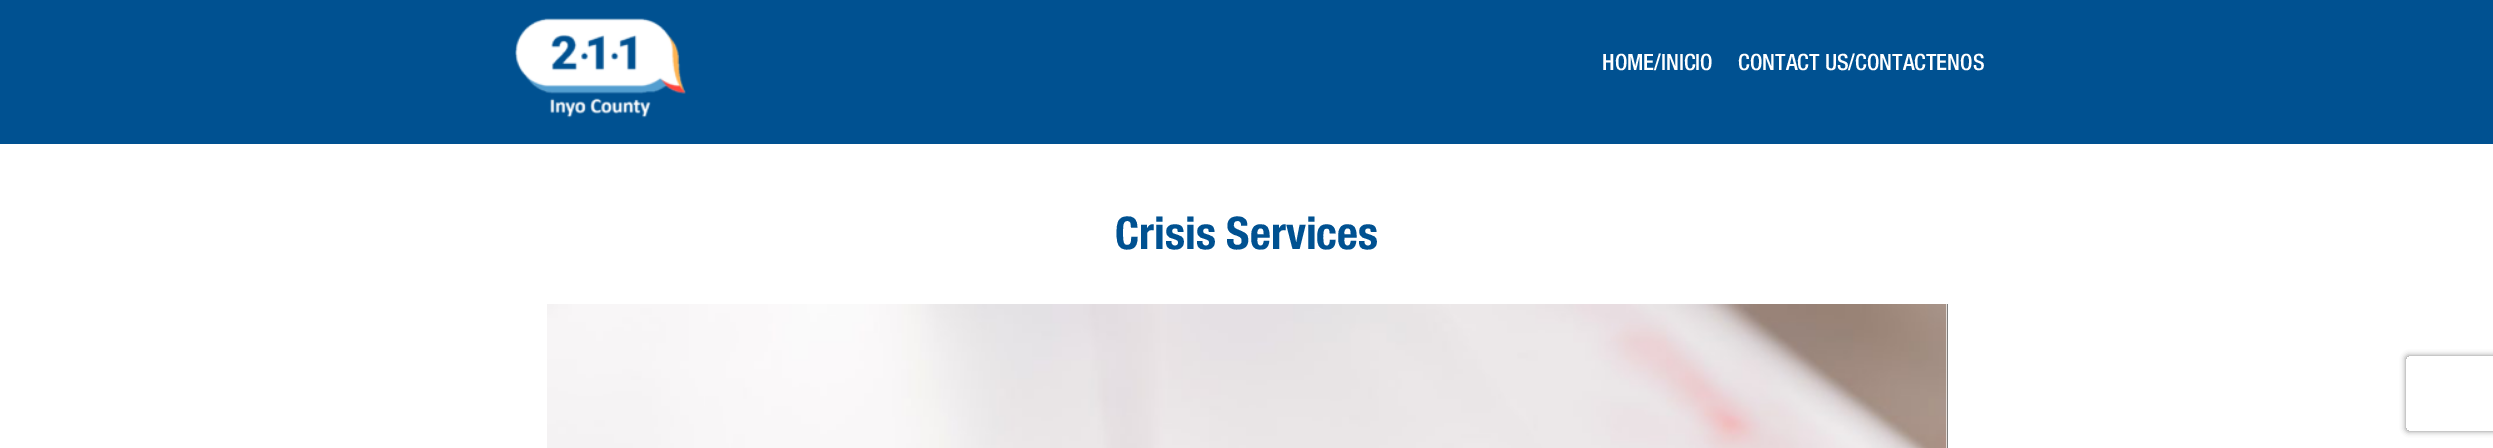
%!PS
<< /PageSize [2493 448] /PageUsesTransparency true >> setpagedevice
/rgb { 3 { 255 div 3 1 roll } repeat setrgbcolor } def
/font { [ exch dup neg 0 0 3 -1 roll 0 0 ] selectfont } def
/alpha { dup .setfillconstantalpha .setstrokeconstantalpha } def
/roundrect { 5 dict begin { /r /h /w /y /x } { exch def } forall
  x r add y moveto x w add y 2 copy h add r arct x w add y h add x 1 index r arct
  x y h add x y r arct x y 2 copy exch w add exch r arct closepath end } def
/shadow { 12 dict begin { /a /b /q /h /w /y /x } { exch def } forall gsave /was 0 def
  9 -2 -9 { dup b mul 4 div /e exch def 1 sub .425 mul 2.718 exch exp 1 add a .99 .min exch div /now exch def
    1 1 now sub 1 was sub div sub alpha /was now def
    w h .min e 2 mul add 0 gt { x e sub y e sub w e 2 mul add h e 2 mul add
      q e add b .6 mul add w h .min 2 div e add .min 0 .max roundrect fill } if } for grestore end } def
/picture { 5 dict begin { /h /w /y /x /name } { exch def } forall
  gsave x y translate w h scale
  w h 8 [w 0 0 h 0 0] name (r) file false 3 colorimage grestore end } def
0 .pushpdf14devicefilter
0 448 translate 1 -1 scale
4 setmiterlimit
255 255 255 rgb
0 0 2493 448 rectfill
0 81 145 rgb
0 0 2493 144 rectfill
(img/1.rgb) 515 18 171 100 picture
(img/2.rgb) 547 304 1401 144 picture
(img/3.rgb) 1947 304 1 144 picture
gsave
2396 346 moveto 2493 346 lineto 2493 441 lineto 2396 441 lineto closepath 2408.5 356 moveto 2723.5 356 lineto 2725 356 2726 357 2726 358.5 curveto 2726 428.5 lineto 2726 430 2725 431 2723.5 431 curveto 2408.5 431 lineto 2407 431 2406 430 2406 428.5 curveto 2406 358.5 lineto 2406 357 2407 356 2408.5 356 curveto closepath eoclip newpath
128 128 128 rgb
2406 356 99 75 2.5 3 1 shadow
grestore
/HelveticaNeue-Medium 22.5 font
255 255 255 rgb
1602 70 moveto (HOME/INICIO) show
1738 70 moveto (CONTACT US/CONTACTENOS) show
/HelveticaNeue-Bold 45 font
0 81 145 rgb
1115 249 moveto (Crisis Services) show
.poppdf14devicefilter showpage
